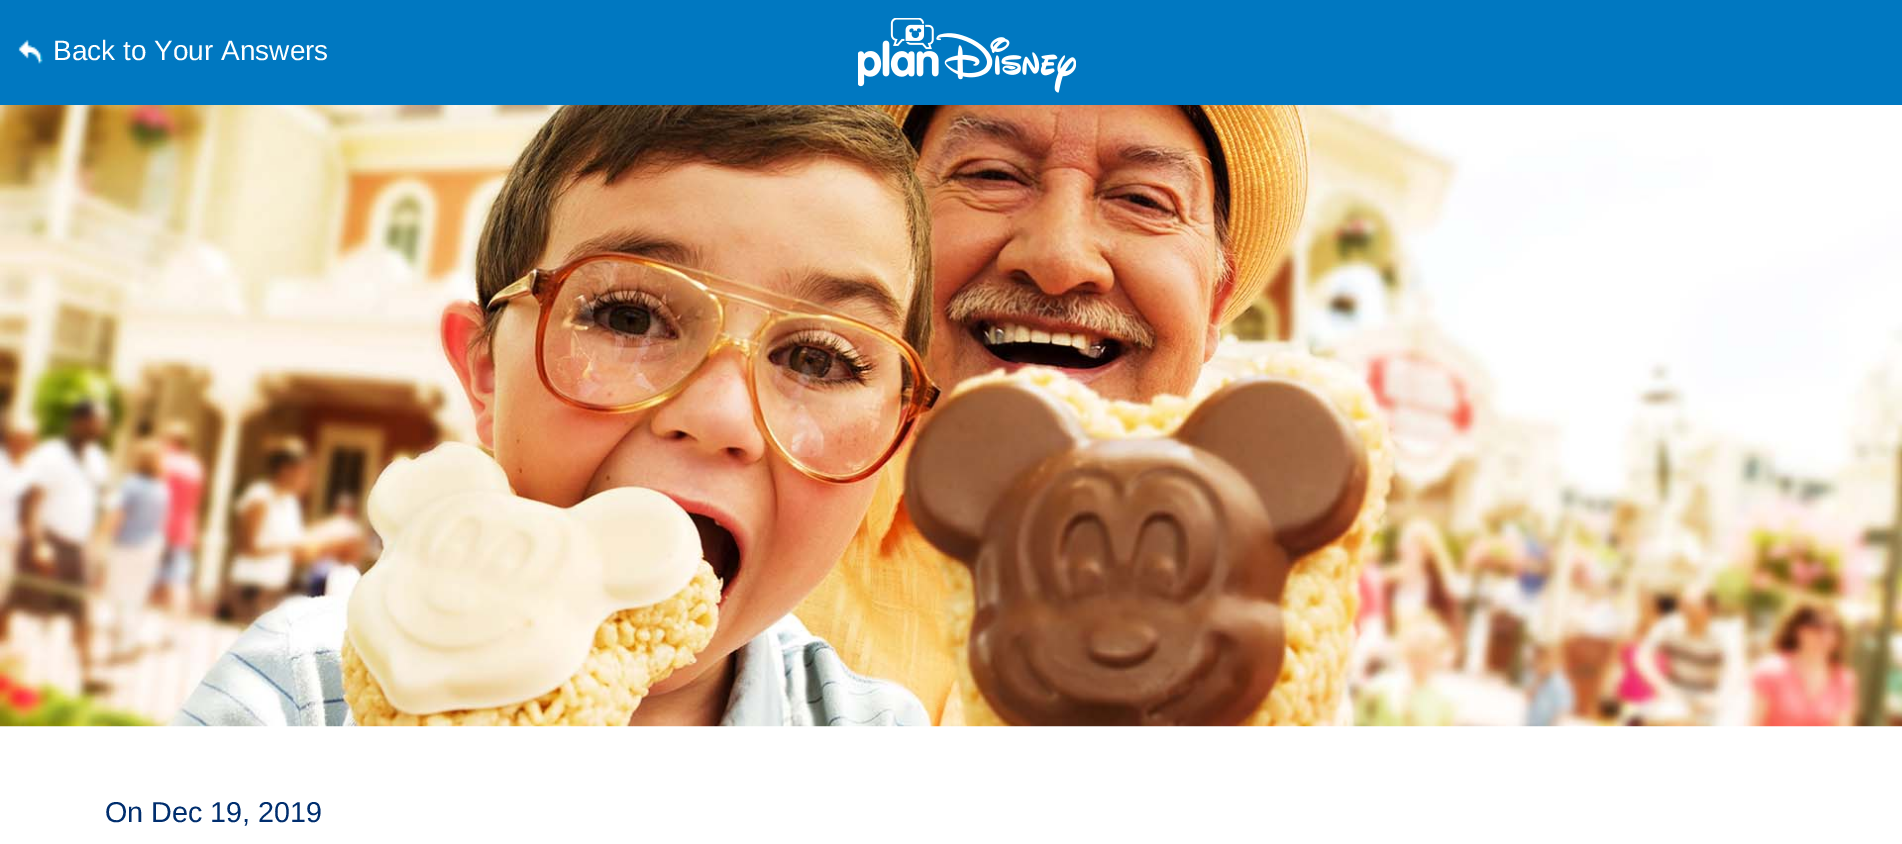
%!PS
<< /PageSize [1902 844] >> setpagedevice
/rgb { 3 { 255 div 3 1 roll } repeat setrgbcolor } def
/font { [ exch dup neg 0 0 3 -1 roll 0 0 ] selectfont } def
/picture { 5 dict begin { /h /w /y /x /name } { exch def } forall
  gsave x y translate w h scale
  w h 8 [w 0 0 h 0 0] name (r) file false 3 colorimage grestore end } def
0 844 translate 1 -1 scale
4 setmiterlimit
255 255 255 rgb
0 0 1902 844 rectfill
0 120 193 rgb
0 0 1902 105 rectfill
(img/1.rgb) 18 39 25 25 picture
(img/2.rgb) 858 18 218 75 picture
(img/3.rgb) 0 105 1902 622 picture
/LiberationSans-Regular 28 font
255 255 255 rgb
53 60 moveto (Back to Your Answers) show
/LiberationSans-Regular 28.75 font
0 46 110 rgb
105 822 moveto (On Dec 19, 2019) show
showpage
